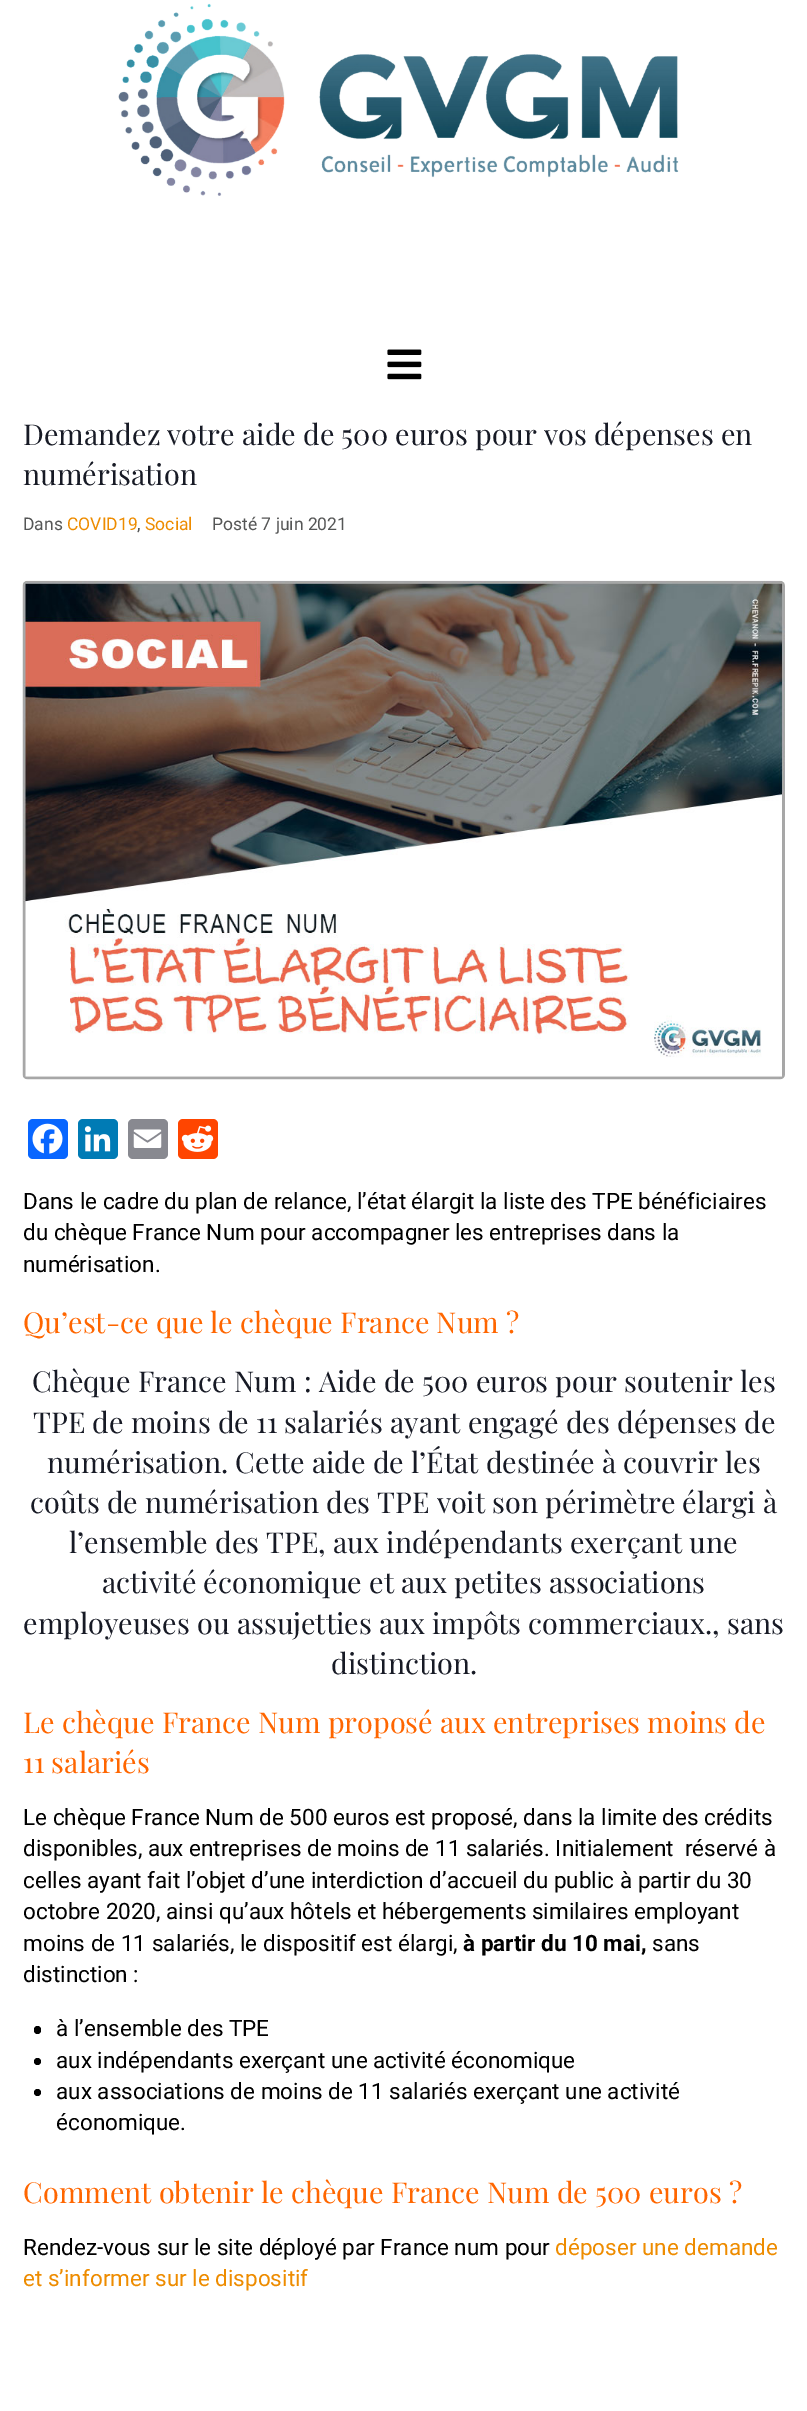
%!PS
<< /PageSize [807 2411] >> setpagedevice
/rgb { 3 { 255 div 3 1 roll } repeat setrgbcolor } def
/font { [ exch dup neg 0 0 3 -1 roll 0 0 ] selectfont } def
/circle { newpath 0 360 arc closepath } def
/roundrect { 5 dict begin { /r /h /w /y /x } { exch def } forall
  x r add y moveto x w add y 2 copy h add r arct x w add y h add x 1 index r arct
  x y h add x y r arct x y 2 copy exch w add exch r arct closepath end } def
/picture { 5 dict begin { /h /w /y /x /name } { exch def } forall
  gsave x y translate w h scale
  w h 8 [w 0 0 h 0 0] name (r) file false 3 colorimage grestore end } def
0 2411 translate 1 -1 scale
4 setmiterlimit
255 255 255 rgb
0 0 807 2411 rectfill
(img/1.rgb) 118 3 561 193 picture
(img/2.rgb) 387 349 35 31 picture
(img/3.rgb) 22 580 763 500 picture
8 102 255 rgb
28 1119 40 40 5 roundrect fill
(img/4.rgb) 32 1123 31 31 picture
0 123 181 rgb
78 1119 40 40 5 roundrect fill
(img/5.rgb) 84 1126 27 26 picture
136 137 144 rgb
128 1119 40 40 5 roundrect fill
(img/6.rgb) 133 1129 29 19 picture
255 69 0 rgb
178 1119 40 40 5 roundrect fill
(img/7.rgb) 181 1125 33 27 picture
0 0 0 rgb
34 2026 7 8 3.5 roundrect fill
37.5 2061.5 3.5 circle fill
37.5 2092.5 3.5 circle fill
/PlayfairDisplay-Regular 28.75 font
23 26 37 rgb
23 445 moveto (Demandez votre aide de 500 euros pour vos dépenses en) show
23 485 moveto (numérisation) show
/Roboto-Regular 17.5 font
85 86 86 rgb
23 530 moveto (Dans) show
238 140 0 rgb
67 530 moveto (COVID19) show
85 86 86 rgb
137 530 moveto (,) show
238 140 0 rgb
145 530 moveto (Social) show
85 86 86 rgb
212 530 moveto (Posté 7 juin 2021) show
/Roboto-Regular 22.5 font
0 0 0 rgb
[
  [(Dans le cadre du plan de relance, l’état élargit la liste des TPE bénéficiaires) 23 1209]
  [(du chèque France Num pour accompagner les entreprises dans la) 23 1240]
  [(numérisation.) 23 1272]
] { aload pop moveto show } forall
/PlayfairDisplay-Regular 28.75 font
255 102 0 rgb
23 1333 moveto (Qu’est-ce que le chèque France Num ?) show
23 26 37 rgb
[
  [(Chèque France Num : Aide de 500 euros pour soutenir les) 32 1392]
  [(TPE de moins de 11 salariés ayant engagé des dépenses de) 33 1433]
  [(numérisation. Cette aide de l’État destinée à couvrir les) 47 1473]
  [(coûts de numérisation des TPE voit son périmètre élargi à) 30 1513]
  [(l’ensemble des TPE, aux indépendants exerçant une) 69 1553]
  [(activité économique et aux petites associations) 102 1593]
  [(employeuses ou assujetties aux impôts commerciaux., sans) 23 1634]
  [(distinction.) 331 1674]
] { aload pop moveto show } forall
255 102 0 rgb
23 1733 moveto (Le chèque France Num proposé aux entreprises moins de) show
23 1773 moveto (11 salariés) show
/Roboto-Regular 22.5 font
0 0 0 rgb
[
  [(Le chèque France Num de 500 euros est proposé, dans la limite des crédits) 23 1825]
  [(disponibles, aux entreprises de moins de 11 salariés. Initialement  réservé à) 23 1856]
  [(celles ayant fait l’objet d’une interdiction d’accueil du public à partir du 30) 23 1888]
  [(octobre 2020, ainsi qu’aux hôtels et hébergements similaires employant) 23 1919]
  [(moins de 11 salariés, le dispositif est élargi,) 23 1951]
] { aload pop moveto show } forall
/Roboto-Bold 22.5 font
463 1951 moveto (à partir du 10 mai,) show
/Roboto-Regular 22.5 font
[
  [(sans) 652 1951]
  [(distinction :) 23 1982]
  [(à l’ensemble des TPE) 56 2036]
  [(aux indépendants exerçant une activité économique) 56 2068]
  [(aux associations de moins de 11 salariés exerçant une activité) 56 2099]
  [(économique.) 56 2130]
] { aload pop moveto show } forall
/PlayfairDisplay-Regular 28.75 font
255 102 0 rgb
23 2203 moveto (Comment obtenir le chèque France Num de 500 euros ?) show
/Roboto-Regular 22.5 font
0 0 0 rgb
23 2255 moveto (Rendez-vous sur le site déployé par France num pour) show
238 140 0 rgb
555 2255 moveto (déposer une demande) show
23 2286 moveto (et s’informer sur le dispositif) show
showpage
